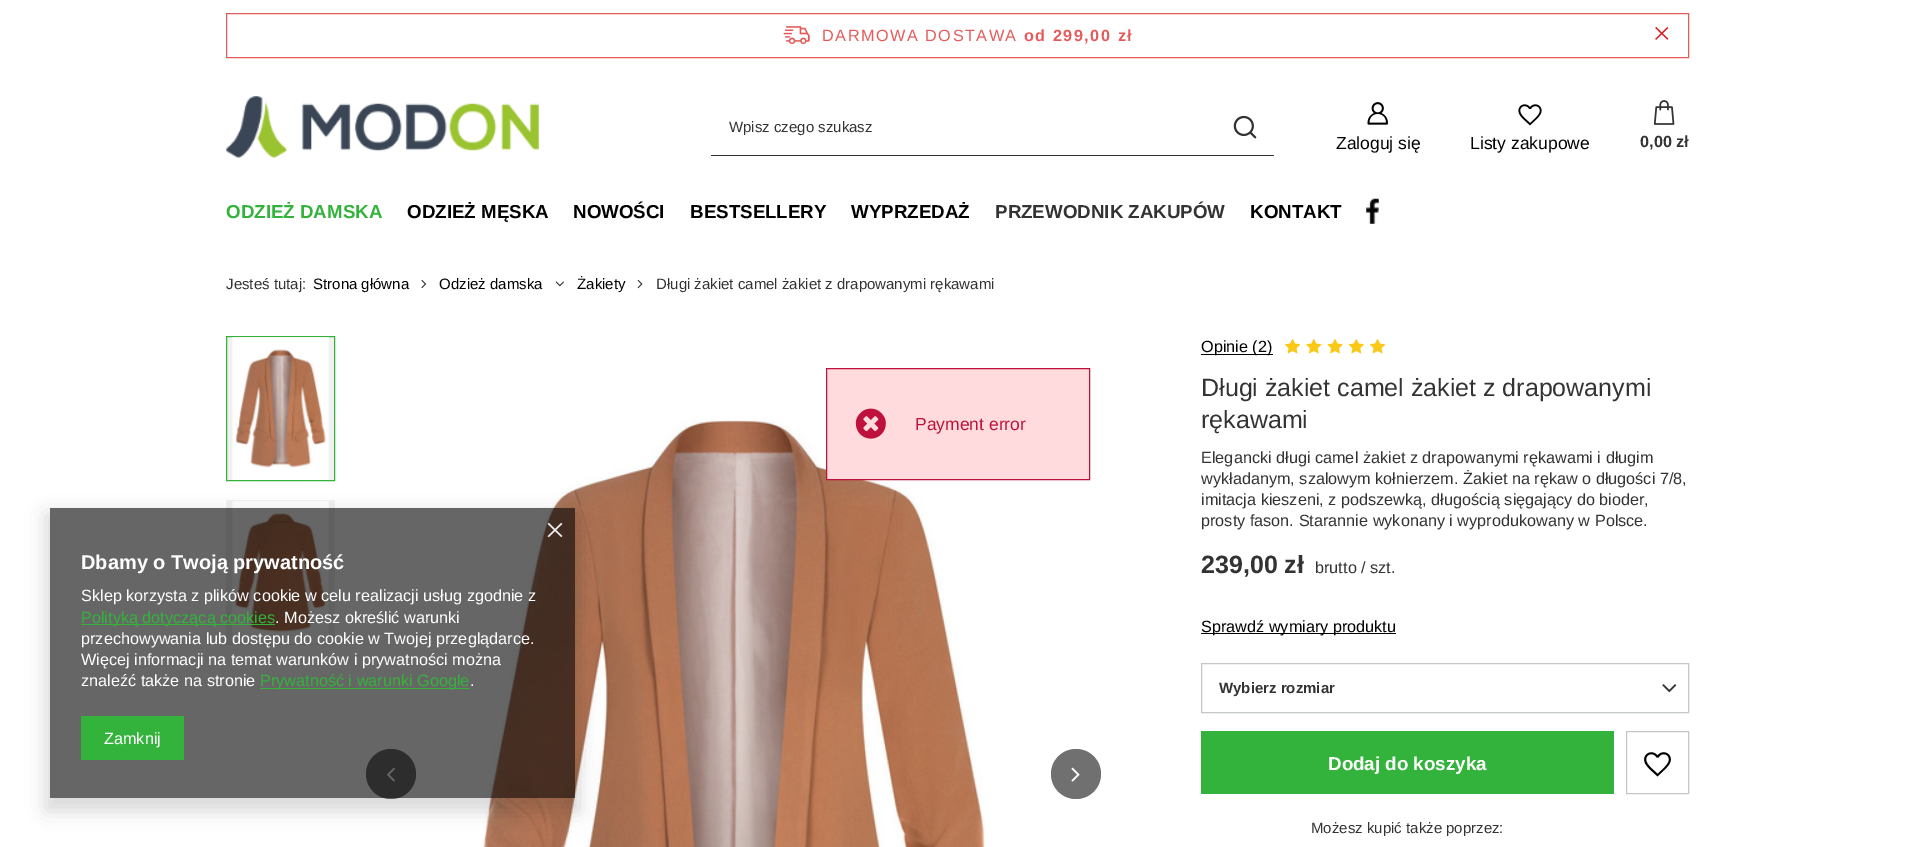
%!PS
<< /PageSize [1914 847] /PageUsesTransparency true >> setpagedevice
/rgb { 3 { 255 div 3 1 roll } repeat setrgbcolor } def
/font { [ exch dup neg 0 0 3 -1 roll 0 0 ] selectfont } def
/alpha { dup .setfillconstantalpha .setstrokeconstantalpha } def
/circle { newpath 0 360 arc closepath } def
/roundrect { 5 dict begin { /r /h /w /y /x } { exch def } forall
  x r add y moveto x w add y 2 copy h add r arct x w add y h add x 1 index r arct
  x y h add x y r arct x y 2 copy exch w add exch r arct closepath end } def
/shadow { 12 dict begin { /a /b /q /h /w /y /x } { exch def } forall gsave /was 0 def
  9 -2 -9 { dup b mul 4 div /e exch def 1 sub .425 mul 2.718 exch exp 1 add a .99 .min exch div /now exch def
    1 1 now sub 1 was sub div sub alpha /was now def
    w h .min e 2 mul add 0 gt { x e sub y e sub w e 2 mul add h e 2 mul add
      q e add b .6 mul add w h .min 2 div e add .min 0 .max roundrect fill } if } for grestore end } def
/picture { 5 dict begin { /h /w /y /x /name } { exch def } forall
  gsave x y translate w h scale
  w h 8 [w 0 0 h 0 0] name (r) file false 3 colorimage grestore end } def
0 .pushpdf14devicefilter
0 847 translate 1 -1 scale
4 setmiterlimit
255 255 255 rgb
0 0 1914 847 rectfill
227 92 92 rgb
226.5 13.5 1462 44 rectstroke
(img/1.rgb) 783 26 27 19 picture
(img/2.rgb) 1655 26 14 14 picture
(img/3.rgb) 226 96 313 62 picture
51 51 51 rgb
711 155 563 1 rectfill
(img/4.rgb) 1233 115 24 24 picture
(img/5.rgb) 1367 102 21 23 picture
(img/6.rgb) 1518 104 24 22 picture
(img/7.rgb) 1653 100 22 25 picture
(img/8.rgb) 1366 198 13 26 picture
(img/9.rgb) 421 279 6 10 picture
(img/10.rgb) 555 281 9 6 picture
(img/11.rgb) 637 279 6 10 picture
241 241 241 rgb
226.5 336.5 moveto 334.5 336.5 lineto 334.5 480.5 lineto 226.5 480.5 lineto closepath gsave fill grestore
51 179 59 rgb
stroke
(img/12.rgb) 232 337 97 143 picture
241 241 241 rgb
226 500 109 145 rectfill
(img/13.rgb) 232 501 97 143 picture
112 112 112 rgb
391 774 25 circle fill
(img/14.rgb) 386 767 9 15 picture
(img/15.rgb) 483 418 503 429 picture
1076 774 25 circle fill
(img/16.rgb) 1071 767 9 15 picture
0 0 0 rgb
1201 354 72 1 rectfill
(img/17.rgb) 1285 339 15 15 picture
(img/18.rgb) 1306 339 16 15 picture
(img/19.rgb) 1327 339 16 15 picture
(img/20.rgb) 1348 339 16 15 picture
(img/17.rgb) 1370 339 15 15 picture
1201 633 195 1 rectfill
196 199 200 rgb
1201.5 663.5 487 49 rectstroke
(img/21.rgb) 1662 684 15 9 picture
51 179 59 rgb
1201 731 413 63 rectfill
196 199 200 rgb
1626.5 731.5 62 62 rectstroke
(img/22.rgb) 1644 752 27 25 picture
255 219 221 rgb
826.5 368.5 moveto 1089.5 368.5 lineto 1089.5 479.5 lineto 826.5 479.5 lineto closepath gsave fill grestore
190 18 60 rgb
stroke
(img/23.rgb) 855 408 31 31 picture
gsave
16 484 moveto 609 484 lineto 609 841 lineto 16 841 lineto closepath 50 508 moveto 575 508 lineto 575 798 lineto 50 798 lineto closepath eoclip newpath
0 0 0 rgb
46 514 533 297 0 9.5 0.15 shadow
grestore
0.6 alpha
0 0 0 rgb
50 508 525 290 rectfill
1 alpha
(img/24.rgb) 547 522 16 16 picture
[
  [81 624 194 1 51 179 59]
  [260 688 210 1 51 179 59]
  [81 716 103 44 51 179 59]
] { aload pop rgb rectfill } forall
/LiberationSans-Regular 16.25 font
227 92 92 rgb
822 41 moveto 1.5 0 (DARMOWA DOSTAWA) ashow
/LiberationSans-Bold 16.25 font
1024 41 moveto 1.5 0 (od 299,00 zł) ashow
/LiberationSans-Regular 15 font
51 51 51 rgb
729 132 moveto (Wpisz czego szukasz) show
/LiberationSans-Regular 17.5 font
0 0 0 rgb
1336 149 moveto (Zaloguj się) show
1470 149 moveto (Listy zakupowe) show
/LiberationSans-Bold 16.25 font
51 51 51 rgb
1640 147 moveto (0,00 zł) show
/LiberationSans-Bold 18.75 font
51 179 59 rgb
226 218 moveto (ODZIEŻ DAMSKA) show
0 0 0 rgb
[
  [(ODZIEŻ MĘSKA) 407 218]
  [(NOWOŚCI) 573 218]
  [(BESTSELLERY) 690 218]
  [(WYPRZEDAŻ) 851 218]
] { aload pop moveto show } forall
51 51 51 rgb
995 218 moveto (PRZEWODNIK ZAKUPÓW) show
0 0 0 rgb
1250 218 moveto (KONTAKT) show
/LiberationSans-Regular 15 font
51 51 51 rgb
226 289 moveto (Jesteś tutaj:) show
0 0 0 rgb
[
  [(Strona główna) 313 289]
  [(Odzież damska) 439 289]
  [(Żakiety) 577 289]
] { aload pop moveto show } forall
51 51 51 rgb
656 289 moveto (Długi żakiet camel żakiet z drapowanymi rękawami) show
/LiberationSans-Regular 16.25 font
0 0 0 rgb
1201 352 moveto (Opinie \(2\)) show
/LiberationSans-Regular 25 font
51 51 51 rgb
1201 396 moveto (Długi żakiet camel żakiet z drapowanymi) show
1201 428 moveto (rękawami) show
/LiberationSans-Regular 16.25 font
[
  [(Elegancki długi camel żakiet z drapowanymi rękawami i długim) 1201 463]
  [(wykładanym, szalowym kołnierzem. Żakiet na rękaw o długości 7/8,) 1201 484]
  [(imitacja kieszeni, z podszewką, długością sięgający do bioder,) 1201 505]
  [(prosty fason. Starannie wykonany i wyprodukowany w Polsce.) 1201 526]
] { aload pop moveto show } forall
/LiberationSans-Bold 25 font
1201 573 moveto (239,00 zł) show
/LiberationSans-Regular 16.25 font
1315 573 moveto (brutto / szt.) show
0 0 0 rgb
1201 632 moveto (Sprawdź wymiary produktu) show
/LiberationSans-Bold 15 font
51 51 51 rgb
1219 693 moveto (Wybierz rozmiar) show
/LiberationSans-Bold 18.75 font
255 255 255 rgb
1328 770 moveto (Dodaj do koszyka) show
/LiberationSans-Regular 15 font
51 51 51 rgb
1311 833 moveto (Możesz kupić także poprzez:) show
/LiberationSans-Regular 17.5 font
190 18 60 rgb
915 430 moveto (Payment error) show
/LiberationSans-Bold 20 font
255 255 255 rgb
81 569 moveto (Dbamy o Twoją prywatność) show
/LiberationSans-Regular 16.25 font
81 601 moveto (Sklep korzysta z plików cookie w celu realizacji usług zgodnie z) show
51 179 59 rgb
81 623 moveto (Polityką dotyczącą cookies) show
255 255 255 rgb
[
  [(. Możesz określić warunki) 275 623]
  [(przechowywania lub dostępu do cookie w Twojej przeglądarce.) 81 644]
  [(Więcej informacji na temat warunków i prywatności można) 81 665]
  [(znaleźć także na stronie) 81 686]
] { aload pop moveto show } forall
51 179 59 rgb
260 686 moveto (Prywatność i warunki Google) show
255 255 255 rgb
470 686 moveto (.) show
104 744 moveto (Zamknij) show
.poppdf14devicefilter showpage
